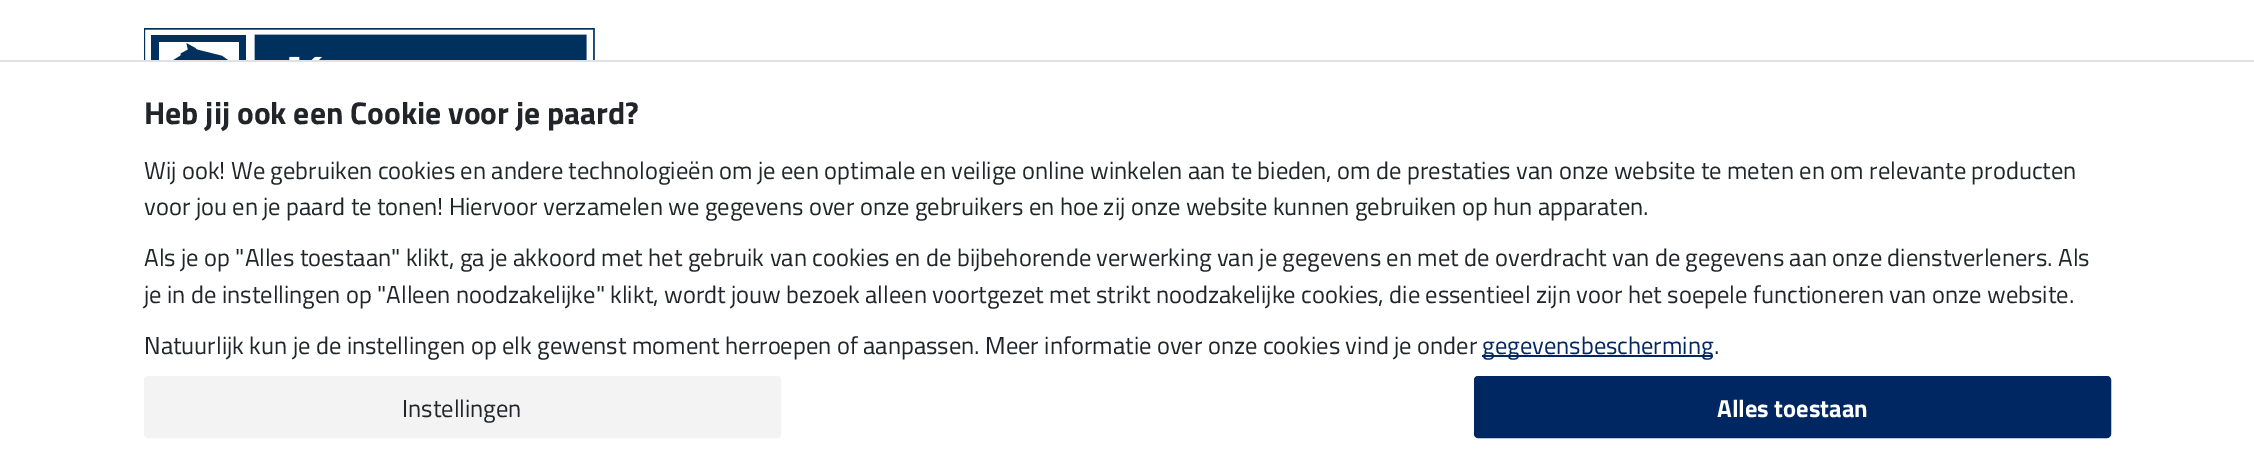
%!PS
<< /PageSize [2254 464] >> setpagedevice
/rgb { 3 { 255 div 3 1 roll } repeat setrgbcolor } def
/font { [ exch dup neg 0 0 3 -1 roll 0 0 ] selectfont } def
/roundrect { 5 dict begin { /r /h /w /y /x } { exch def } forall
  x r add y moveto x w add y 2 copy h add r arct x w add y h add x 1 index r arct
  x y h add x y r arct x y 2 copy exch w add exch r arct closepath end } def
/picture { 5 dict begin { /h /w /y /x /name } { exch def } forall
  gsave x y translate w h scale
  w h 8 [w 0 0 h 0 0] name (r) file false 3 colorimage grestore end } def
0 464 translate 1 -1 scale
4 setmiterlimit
255 255 255 rgb
0 0 2254 464 rectfill
(img/1.rgb) 144 28 451 32 picture
222 226 230 rgb
0 60 2254 2 rectfill
0 39 98 rgb
1482 355 231 2 rectfill
243 243 243 rgb
145 377 635 60 3 roundrect gsave fill grestore
2 setlinewidth
stroke
0 39 98 rgb
1475 377 635 60 3 roundrect gsave fill grestore
stroke
/TitilliumWeb-Bold 31.5 font
33 37 41 rgb
144 124 moveto (Heb jij ook een Cookie voor je paard?) show
/TitilliumWeb-Regular 24.5 font
[
  [(Wij ook! We gebruiken cookies en andere technologieën om je een optimale en veilige online winkelen aan te bieden, om de prestaties van onze website te meten en om relevante producten) 144 179]
  [(voor jou en je paard te tonen! Hiervoor verzamelen we gegevens over onze gebruikers en hoe zij onze website kunnen gebruiken op hun apparaten.) 144 215]
  [(Als je op "Alles toestaan" klikt, ga je akkoord met het gebruik van cookies en de bijbehorende verwerking van je gegevens en met de overdracht van de gegevens aan onze dienstverleners. Als) 144 266]
  [(je in de instellingen op "Alleen noodzakelijke" klikt, wordt jouw bezoek alleen voortgezet met strikt noodzakelijke cookies, die essentieel zijn voor het soepele functioneren van onze website.) 144 303]
  [(Natuurlijk kun je de instellingen op elk gewenst moment herroepen of aanpassen. Meer informatie over onze cookies vind je onder) 144 354]
] { aload pop moveto show } forall
0 39 98 rgb
1482 354 moveto (gegevensbescherming) show
33 37 41 rgb
1714 354 moveto (.) show
402 417 moveto (Instellingen) show
/TitilliumWeb-Bold 24.5 font
255 255 255 rgb
1717 417 moveto (Alles toestaan) show
showpage
